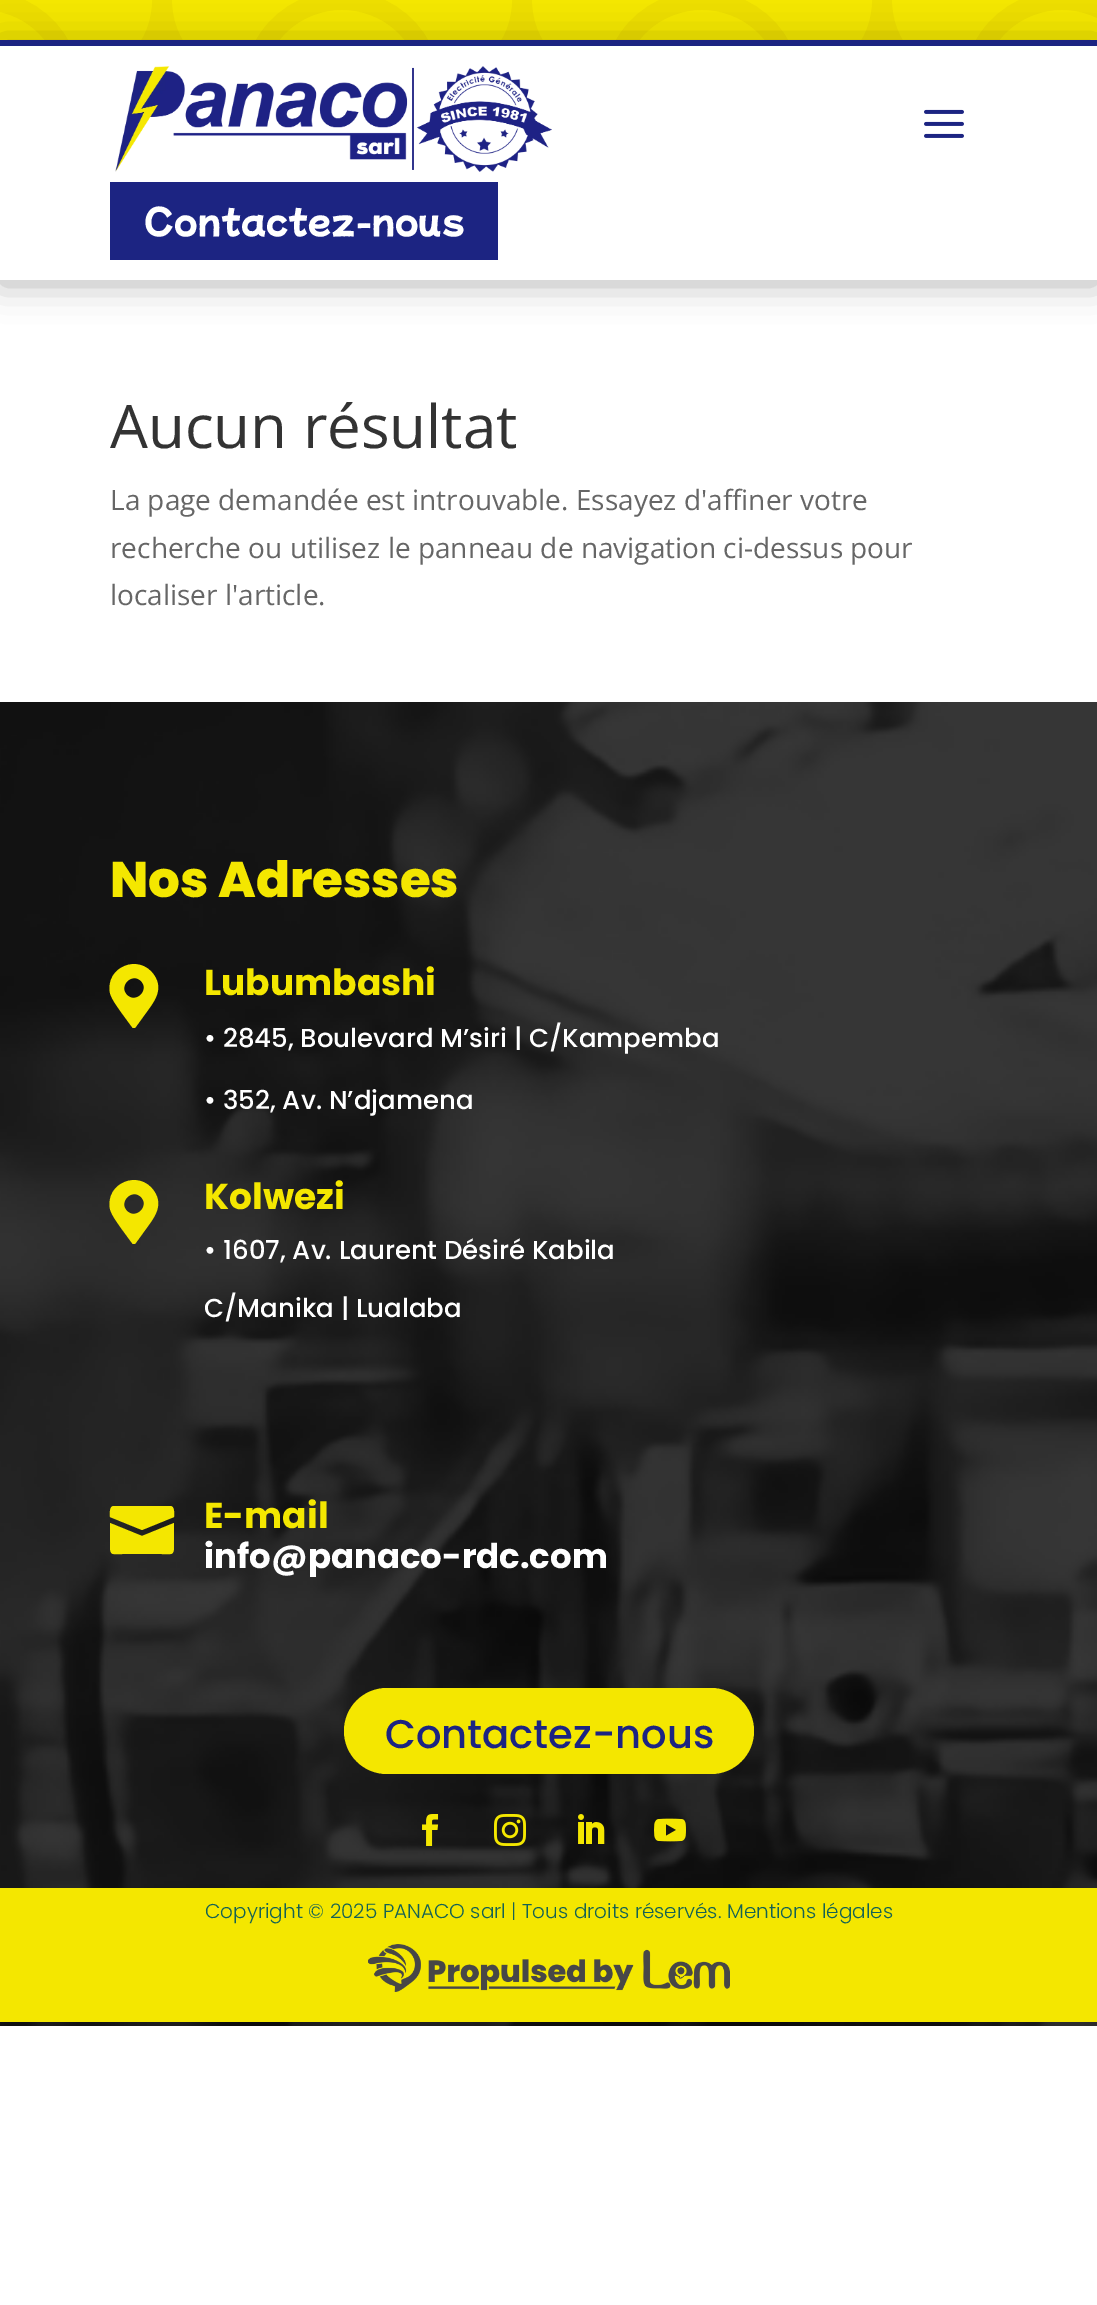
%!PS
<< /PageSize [1097 2305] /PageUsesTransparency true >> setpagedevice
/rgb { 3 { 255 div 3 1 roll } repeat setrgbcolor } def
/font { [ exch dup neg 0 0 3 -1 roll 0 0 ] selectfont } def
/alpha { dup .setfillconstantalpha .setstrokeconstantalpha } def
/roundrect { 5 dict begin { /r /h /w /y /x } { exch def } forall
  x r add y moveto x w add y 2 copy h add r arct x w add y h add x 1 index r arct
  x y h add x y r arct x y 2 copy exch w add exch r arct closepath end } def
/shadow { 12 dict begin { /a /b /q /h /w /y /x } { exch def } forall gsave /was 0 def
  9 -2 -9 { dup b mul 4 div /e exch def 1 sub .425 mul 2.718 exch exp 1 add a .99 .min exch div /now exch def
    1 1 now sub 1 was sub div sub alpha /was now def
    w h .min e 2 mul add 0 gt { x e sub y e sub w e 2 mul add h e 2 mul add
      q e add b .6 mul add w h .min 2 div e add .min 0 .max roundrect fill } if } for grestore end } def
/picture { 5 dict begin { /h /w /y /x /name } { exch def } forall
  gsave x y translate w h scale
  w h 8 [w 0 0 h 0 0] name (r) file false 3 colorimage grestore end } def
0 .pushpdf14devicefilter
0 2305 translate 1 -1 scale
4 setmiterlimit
255 255 255 rgb
0 0 1097 2305 rectfill
244 231 0 rgb
0 0 1097 40 rectfill
(img/1.rgb) 0 0 1097 40 picture
gsave
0 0 moveto 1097 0 lineto 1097 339 lineto 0 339 lineto closepath 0 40 moveto 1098 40 lineto 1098 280 lineto 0 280 lineto closepath eoclip newpath
0 0 0 rgb
0 44 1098 240 0 18 0.3 shadow
grestore
28 36 130 rgb
0 40 1097 6 rectfill
(img/2.rgb) 115 66 437 106 picture
(img/3.rgb) 924 109 40 29 picture
110 182 388 78 rectfill
(img/4.rgb) 0 702 1097 1324 picture
244 231 0 rgb
132 1027 moveto 121 1012 lineto 117 1006 112 1000 110 993 curveto 105 967 139 953 154 975 curveto 165 991 152 1004 143 1017 curveto 135 1028 lineto 134 1028 132 1028 132 1027 curveto closepath 127 995 moveto 136 1004 150 990 141 981 curveto 132 972 118 986 127 995 curveto closepath fill
132 1243 moveto 121 1228 lineto 117 1222 112 1216 110 1209 curveto 105 1183 139 1169 154 1191 curveto 165 1207 152 1220 143 1233 curveto 135 1244 lineto 134 1244 132 1244 132 1243 curveto closepath 127 1211 moveto 136 1220 150 1206 141 1197 curveto 132 1188 118 1202 127 1211 curveto closepath fill
170 1506 moveto 114 1506 lineto 109 1506 110 1513 110 1517 curveto 142 1530 lineto 174 1517 lineto 174 1513 175 1506 170 1506 curveto closepath 110 1523 moveto 110 1546 lineto 110 1556 112 1554 123 1554 curveto 161 1554 lineto 172 1554 174 1556 174 1546 curveto 174 1523 lineto 142 1536 lineto closepath fill
344 1688 410 86 43 roundrect fill
(img/5.rgb) 422 1814 17 32 picture
(img/6.rgb) 494 1814 32 32 picture
(img/7.rgb) 578 1814 27 30 picture
(img/8.rgb) 654 1818 32 24 picture
0 1888 1097 134 rectfill
(img/9.rgb) 368 1944 362 48 picture
/MochiyPopPOne-Regular 34 font
255 255 255 rgb
144 234 moveto (Contactez-nous) show
/OpenSans-Regular 60 font
51 51 51 rgb
110 448 moveto (Aucun résultat) show
/OpenSans-Regular 28 font
102 102 102 rgb
[
  [(La page demandée est introuvable. Essayez d'affiner votre) 110 510]
  [(recherche ou utilisez le panneau de navigation ci-dessus pour) 110 558]
  [(localiser l'article.) 110 605]
] { aload pop moveto show } forall
/Poppins-ExtraBold 50 font
244 231 0 rgb
110 897 moveto (Nos Adresses) show
/Poppins-Bold 36 font
204 995 moveto (Lubumbashi) show
/Poppins-Medium 26 font
255 255 255 rgb
204 1047 moveto (• 2845, Boulevard M’siri | C/Kampemba) show
204 1109 moveto (• 352, Av. N’djamena) show
/Poppins-Bold 36 font
244 231 0 rgb
204 1209 moveto (Kolwezi) show
/Poppins-Medium 26 font
255 255 255 rgb
204 1259 moveto (• 1607, Av. Laurent Désiré Kabila) show
204 1317 moveto (C/Manika | Lualaba) show
/Poppins-Bold 36 font
244 231 0 rgb
204 1528 moveto (E-mail) show
/Poppins-Bold 34 font
255 255 255 rgb
204 1568 moveto (info@panaco-rdc.com) show
/Poppins-Medium 40 font
28 36 130 rgb
385 1748 moveto (Contactez-nous) show
/Poppins-Light 20 font
21 98 85 rgb
205 1918 moveto (Copyright © 2025 PANACO sarl | Tous droits réservés. Mentions légales) show
.poppdf14devicefilter showpage
